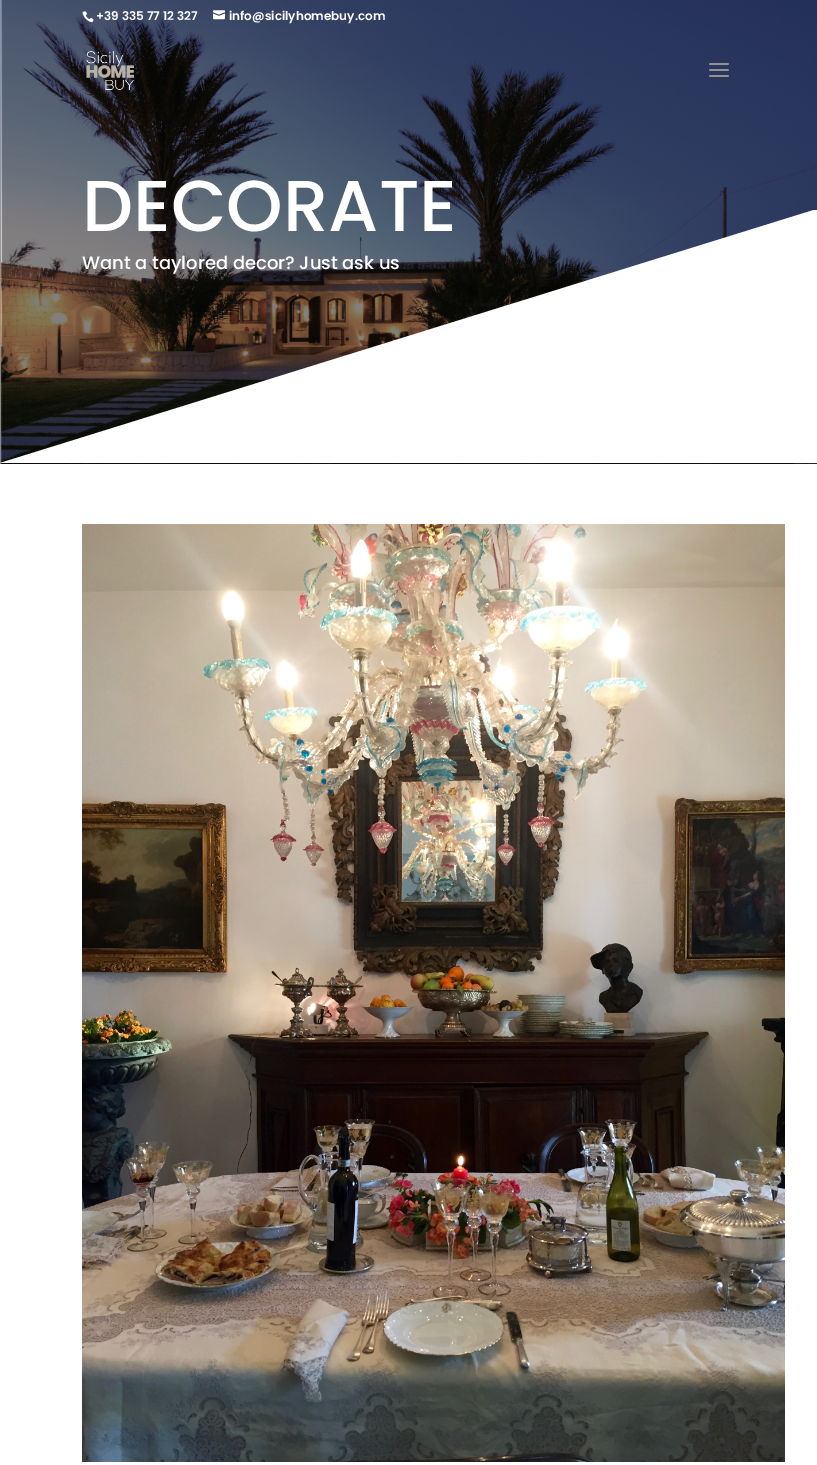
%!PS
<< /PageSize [817 1465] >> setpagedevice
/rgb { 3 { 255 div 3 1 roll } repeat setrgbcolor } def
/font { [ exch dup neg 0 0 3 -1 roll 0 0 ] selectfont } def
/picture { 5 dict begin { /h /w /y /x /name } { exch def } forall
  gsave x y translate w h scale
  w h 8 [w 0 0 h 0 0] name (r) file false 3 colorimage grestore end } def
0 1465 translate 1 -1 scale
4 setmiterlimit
255 255 255 rgb
0 0 817 1465 rectfill
145 145 145 rgb
0 0 2 464 rectfill
(img/5.rgb) 0 0 817 464 picture
(img/1.rgb) 82 11 12 12 picture
(img/2.rgb) 213 10 12 10 picture
(img/3.rgb) 86 50 48 40 picture
(img/4.rgb) 709 63 20 14 picture
gsave
0 210 817 254 rectclip
255 255 255 rgb
817 209 moveto 817 463 lineto 0 463 lineto closepath fill
grestore
(img/6.rgb) 82 524 703 938 picture
/Poppins-SemiBold 12 font
255 255 255 rgb
96 20 moveto (+39 335 77 12 327) show
229 20 moveto (info@sicilyhomebuy.com) show
/Poppins-Medium 72 font
82 231 moveto (DECORATE) show
/Poppins-Medium 18 font
82 269 moveto (Want a taylored decor? Just ask us) show
showpage
